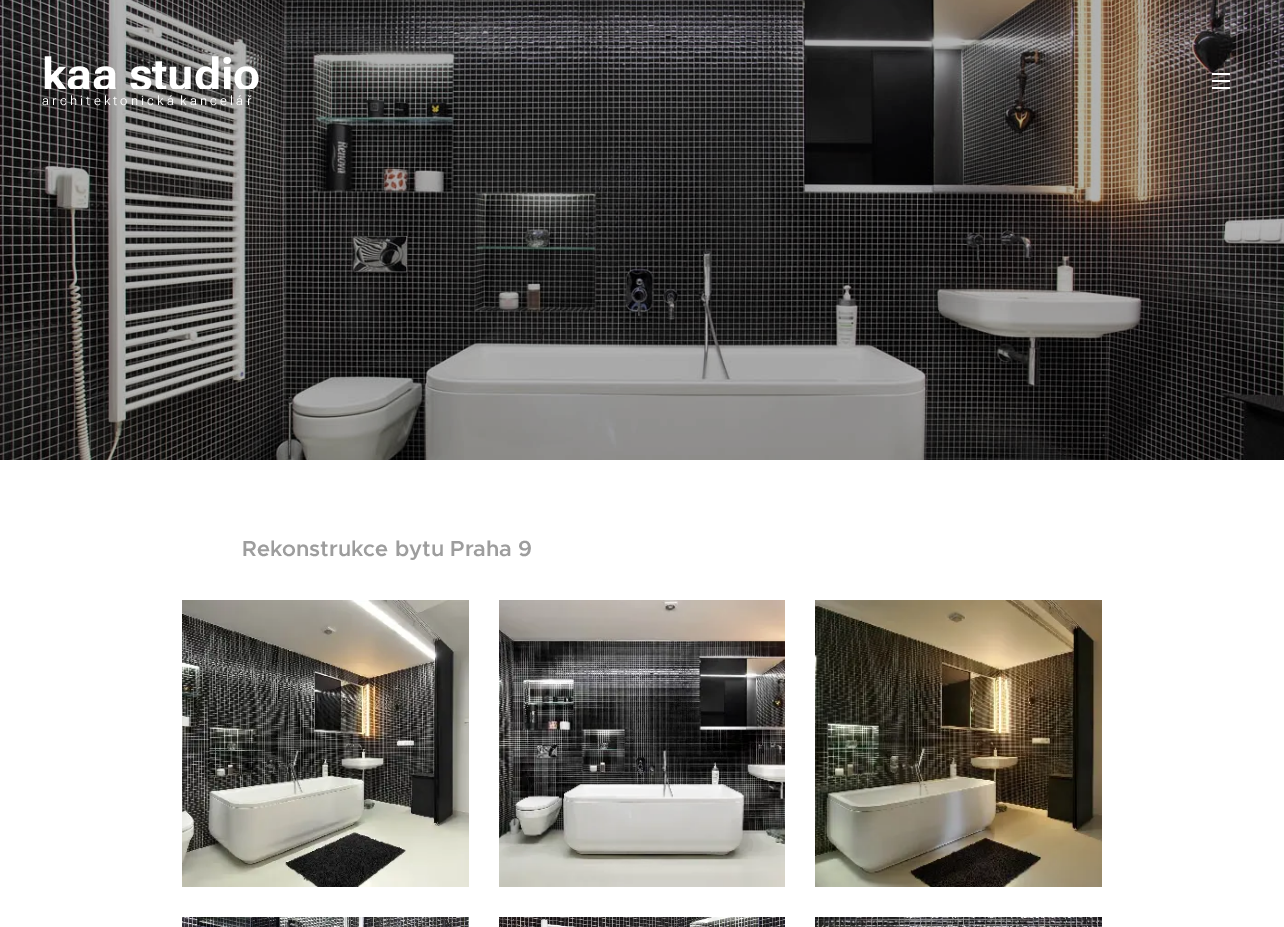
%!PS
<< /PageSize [1284 927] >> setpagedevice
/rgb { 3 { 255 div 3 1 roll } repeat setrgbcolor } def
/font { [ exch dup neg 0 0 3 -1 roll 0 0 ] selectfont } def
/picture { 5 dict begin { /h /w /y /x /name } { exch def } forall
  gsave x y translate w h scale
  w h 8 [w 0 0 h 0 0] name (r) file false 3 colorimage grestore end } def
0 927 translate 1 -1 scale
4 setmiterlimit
255 255 255 rgb
0 0 1284 927 rectfill
(img/1.rgb) 0 0 1284 460 picture
[
  [1212 80 18 2 255 255 255]
  [1212 73 18 2 255 255 255]
  [1212 87 18 2 255 255 255]
] { aload pop rgb rectfill } forall
(img/2.rgb) 182 600 287 287 picture
(img/3.rgb) 499 600 286 287 picture
(img/4.rgb) 815 600 287 287 picture
(img/5.rgb) 182 917 287 10 picture
(img/6.rgb) 499 917 286 10 picture
(img/7.rgb) 815 917 287 10 picture
gsave
35 41 230 48 rectclip
/RobotoFlex-Bold 45 font
42 90 moveto -0.25 0 (kaa studio) ashow
grestore
/RobotoFlex-Light 13 font
42 105 moveto (a r c h i t e k t o n i c k á  k a n c e l á ř) show
/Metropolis-SemiBold 22 font
157 157 157 rgb
242 556 moveto (Rekonstrukce bytu Praha 9) show
showpage
